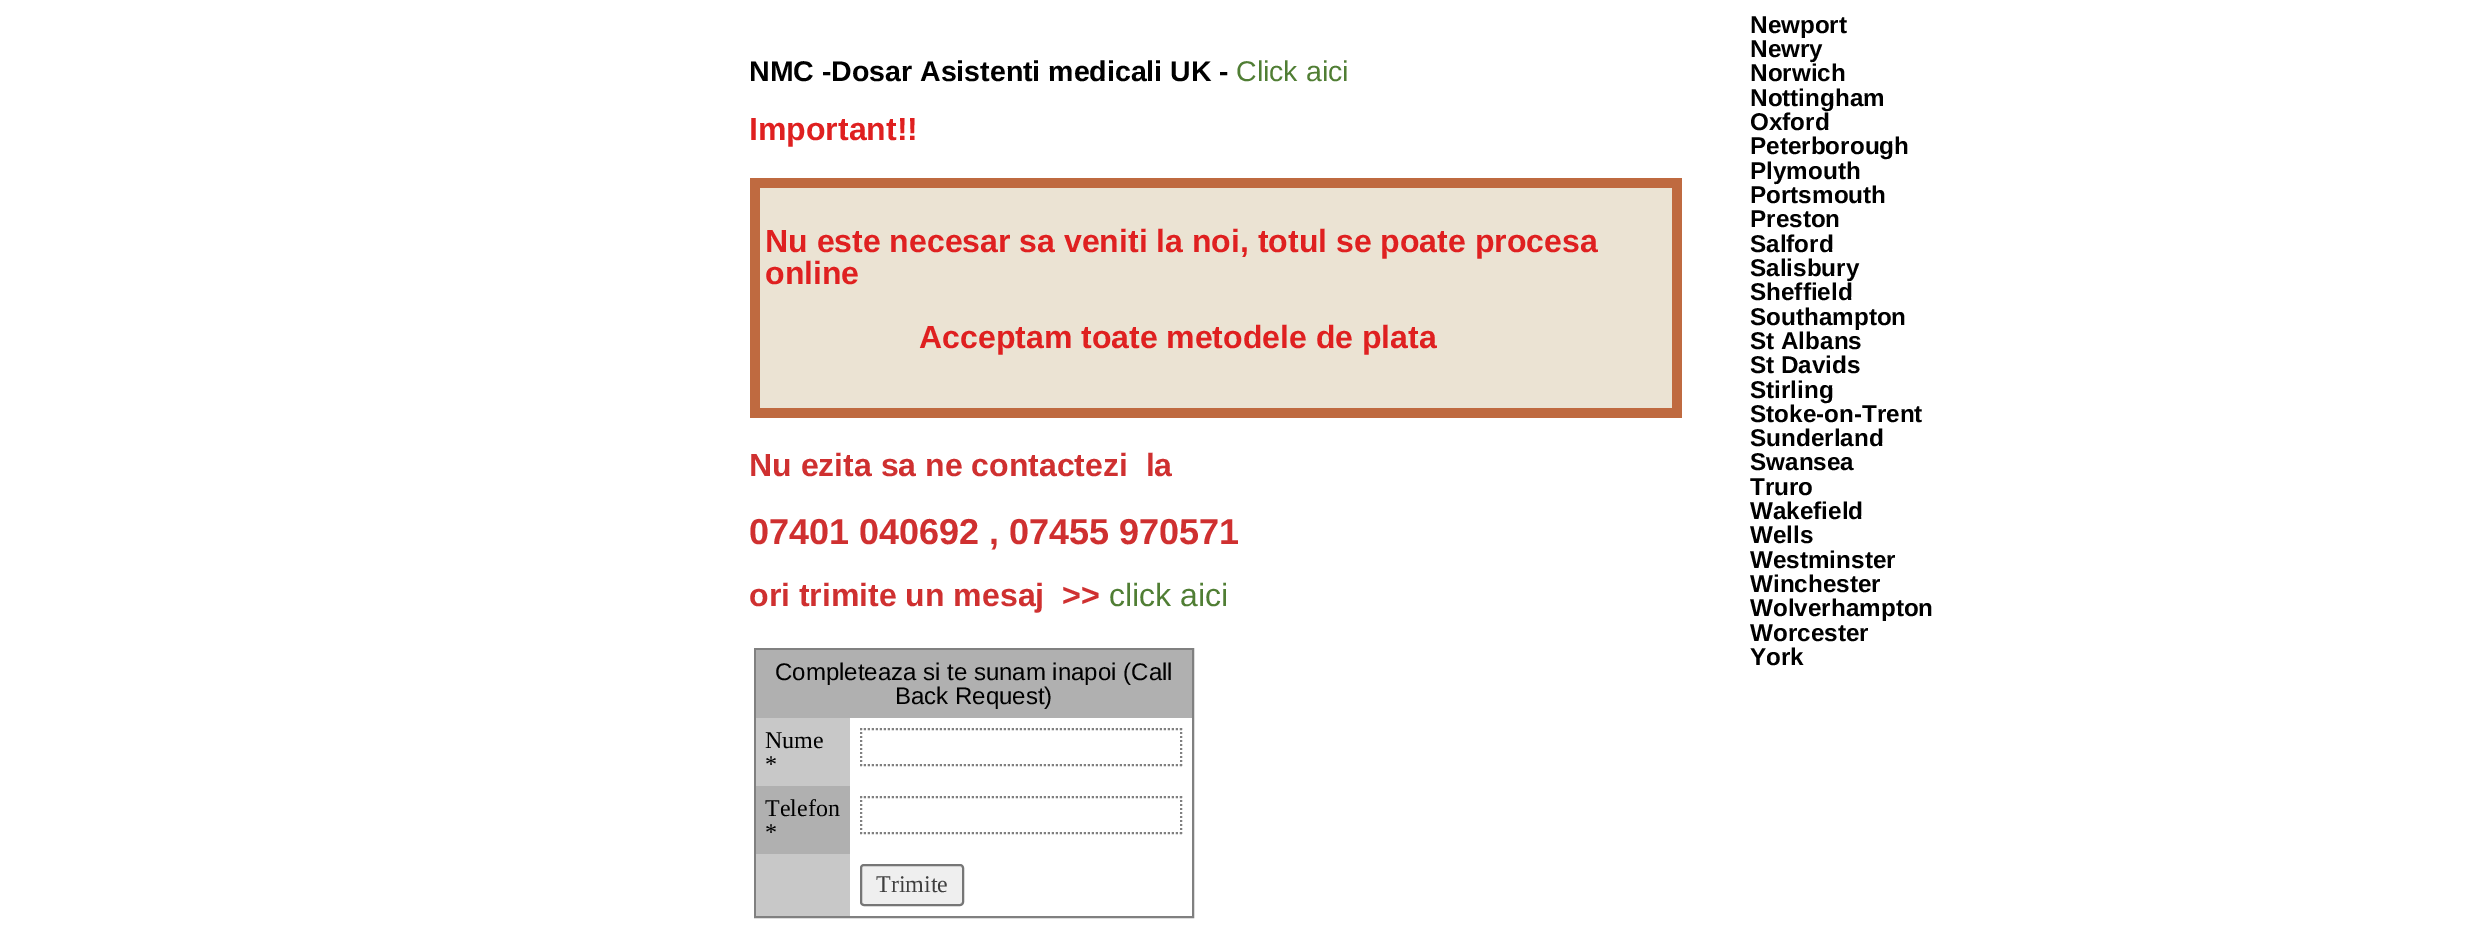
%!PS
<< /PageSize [2468 930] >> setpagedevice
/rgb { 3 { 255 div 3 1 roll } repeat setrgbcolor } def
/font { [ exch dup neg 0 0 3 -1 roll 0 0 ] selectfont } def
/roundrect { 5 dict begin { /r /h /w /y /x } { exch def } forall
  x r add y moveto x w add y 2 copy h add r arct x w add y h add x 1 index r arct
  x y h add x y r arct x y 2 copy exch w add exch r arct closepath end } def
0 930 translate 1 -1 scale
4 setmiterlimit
255 255 255 rgb
0 0 2468 930 rectfill
[
  [760 188 912 220 235 227 211]
  [760 178 912 10 191 106 64]
  [1672 178 10 230 191 106 64]
  [760 408 922 10 191 106 64]
  [750 178 10 240 191 106 64]
] { aload pop rgb rectfill } forall
128 128 128 rgb
2 setlinewidth
755 649 438 268 rectstroke
176 176 176 rgb
756 650 436 68 rectfill
200 200 200 rgb
756 718 94 68 rectfill
128 128 128 rgb
[2 2] 0 setdash
860 729 moveto 1182 729 lineto stroke
1181 728 moveto 1181 766 lineto stroke
860 765 moveto 1182 765 lineto stroke
861 728 moveto 861 766 lineto stroke
176 176 176 rgb
756 786 94 68 rectfill
128 128 128 rgb
860 797 moveto 1182 797 lineto stroke
1181 796 moveto 1181 834 lineto stroke
860 833 moveto 1182 833 lineto stroke
861 796 moveto 861 834 lineto stroke
200 200 200 rgb
756 854 94 62 rectfill
239 239 239 rgb
861 865 102 40 3 roundrect gsave fill grestore
118 118 118 rgb
[] 0 setdash
stroke
/LiberationSans-Bold 28.5 font
0 0 0 rgb
749 81 moveto (NMC -Dosar Asistenti medicali UK -) show
/LiberationSans-Regular 28.5 font
80 126 52 rgb
1236 81 moveto (Click aici) show
/LiberationSans-Bold 32 font
223 32 32 rgb
[
  [(Important!!) 749 140]
  [(Nu este necesar sa veniti la noi, totul se poate procesa) 765 252]
  [(online) 765 284]
  [(Acceptam toate metodele de plata) 919 348]
] { aload pop moveto show } forall
207 48 48 rgb
749 476 moveto (Nu ezita sa ne contactezi  la) show
/LiberationSans-Bold 36 font
749 544 moveto (07401 040692 , 07455 970571) show
/LiberationSans-Bold 32 font
749 606 moveto (ori trimite un mesaj  >>) show
/LiberationSans-Regular 32 font
80 126 52 rgb
1109 606 moveto (click aici) show
/LiberationSans-Regular 24 font
0 0 0 rgb
775 680 moveto (Completeaza si te sunam inapoi \(Call) show
895 704 moveto (Back Request\)) show
/LiberationSerif-Regular 24 font
[
  [(Nume) 765 748]
  [(*) 765 772]
  [(Telefon) 765 816]
  [(*) 765 840]
] { aload pop moveto show } forall
63 63 63 rgb
876 892 moveto (Trimite) show
/LiberationSans-Bold 24.25 font
0 0 0 rgb
[
  [(Newport) 1750 33]
  [(Newry) 1750 57]
  [(Norwich) 1750 81]
  [(Nottingham) 1750 106]
  [(Oxford) 1750 130]
  [(Peterborough) 1750 154]
  [(Plymouth) 1750 179]
  [(Portsmouth) 1750 203]
  [(Preston) 1750 227]
  [(Salford) 1750 252]
  [(Salisbury) 1750 276]
  [(Sheffield) 1750 300]
  [(Southampton) 1750 325]
  [(St Albans) 1750 349]
  [(St Davids) 1750 373]
  [(Stirling) 1750 398]
  [(Stoke-on-Trent) 1750 422]
  [(Sunderland) 1750 446]
  [(Swansea) 1750 470]
  [(Truro) 1750 495]
  [(Wakefield) 1750 519]
  [(Wells) 1750 543]
  [(Westminster) 1750 568]
  [(Winchester) 1750 592]
  [(Wolverhampton) 1750 616]
  [(Worcester) 1750 641]
  [(York) 1750 665]
] { aload pop moveto show } forall
showpage
